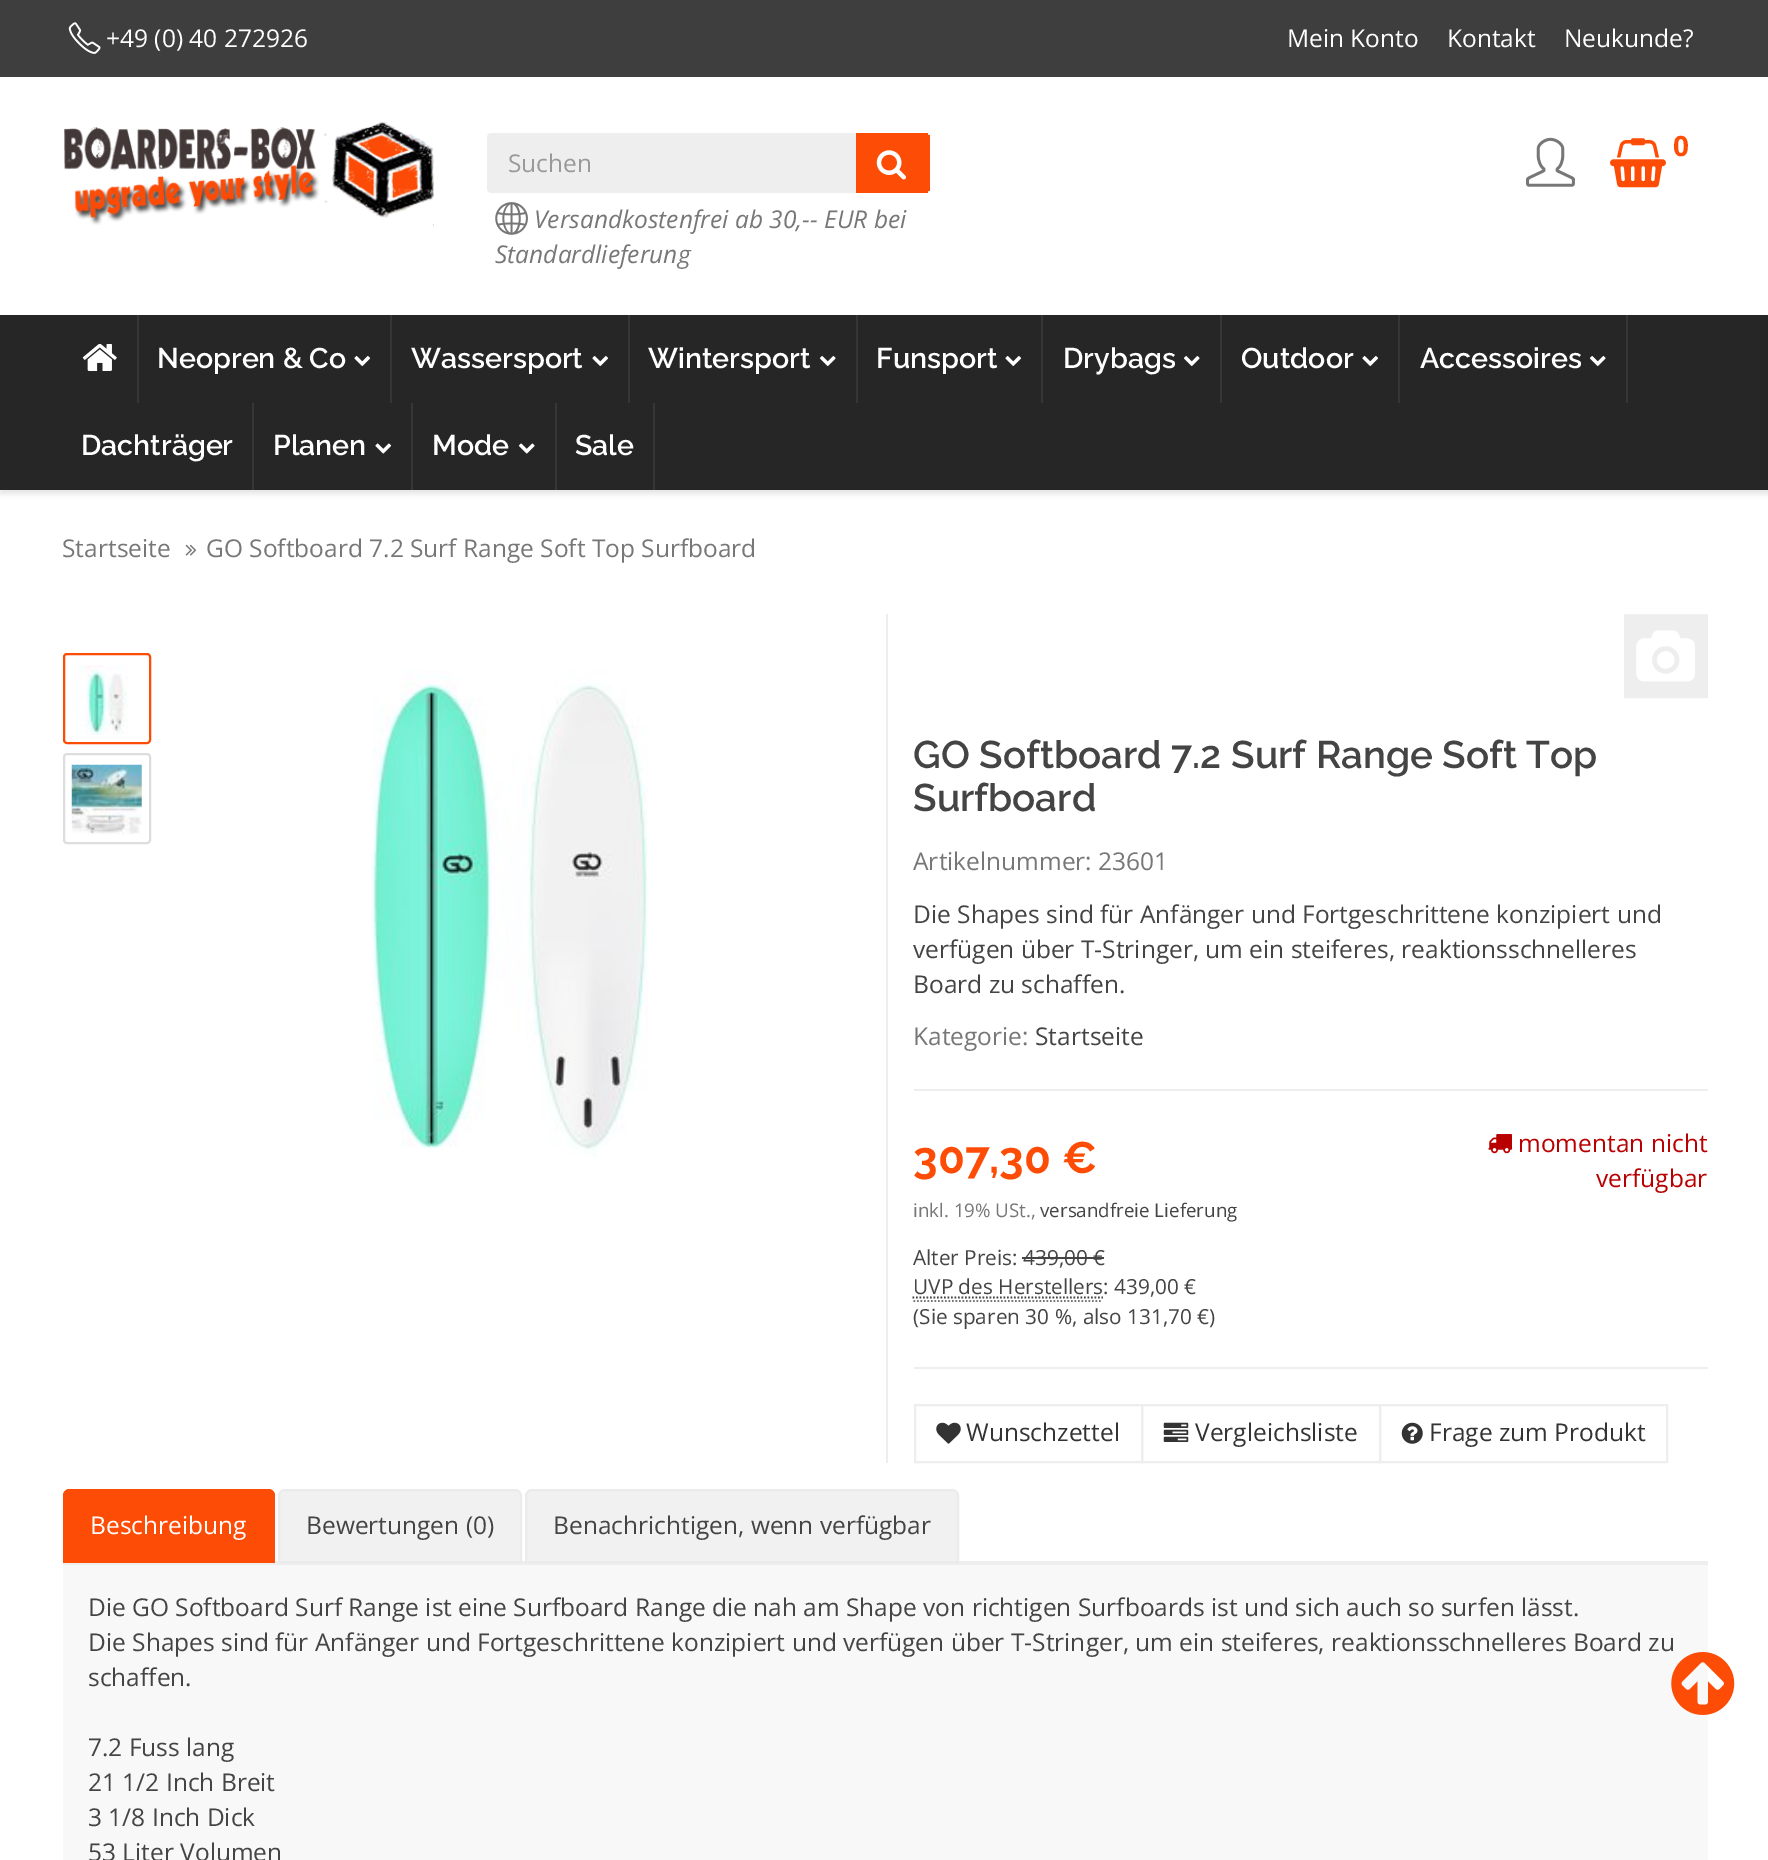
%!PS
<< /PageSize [1768 1860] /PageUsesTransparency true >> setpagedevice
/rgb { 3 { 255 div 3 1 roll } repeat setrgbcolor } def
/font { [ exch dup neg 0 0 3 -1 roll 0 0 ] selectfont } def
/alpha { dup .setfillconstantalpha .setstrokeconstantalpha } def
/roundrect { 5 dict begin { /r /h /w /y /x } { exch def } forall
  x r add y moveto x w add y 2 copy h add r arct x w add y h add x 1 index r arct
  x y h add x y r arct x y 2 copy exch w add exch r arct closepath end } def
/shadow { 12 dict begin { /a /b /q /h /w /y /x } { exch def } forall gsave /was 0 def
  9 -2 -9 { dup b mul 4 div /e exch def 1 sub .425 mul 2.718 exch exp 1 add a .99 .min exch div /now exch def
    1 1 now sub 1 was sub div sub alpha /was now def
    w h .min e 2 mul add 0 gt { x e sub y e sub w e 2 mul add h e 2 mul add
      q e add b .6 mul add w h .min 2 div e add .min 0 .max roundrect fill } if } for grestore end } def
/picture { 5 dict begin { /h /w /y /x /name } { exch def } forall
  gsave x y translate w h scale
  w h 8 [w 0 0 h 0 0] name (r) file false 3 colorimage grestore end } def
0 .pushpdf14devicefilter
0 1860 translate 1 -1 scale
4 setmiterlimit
255 255 255 rgb
0 0 1768 1860 rectfill
62 62 62 rgb
0 0 1768 77 rectfill
(img/1.rgb) 68 22 33 32 picture
(img/2.rgb) 64 121 370 105 picture
(img/3.rgb) 1526 137 49 50 picture
(img/4.rgb) 1610 138 56 50 picture
238 238 238 rgb
491 133 moveto 856 133 lineto 856 193 lineto 491 193 lineto 489 193 487 191 487 189 curveto 487 137 lineto 487 135 489 133 491 133 curveto closepath fill
252 76 6 rgb
856 133 moveto 925 133 lineto 927 133 929 135 929 137 curveto 929 189 lineto 929 191 927 193 925 193 curveto 856 193 lineto closepath fill
[
  [925 133 3 2 252 76 6]
  [928 135 2 56 252 76 6]
  [925 191 3 2 252 76 6]
] { aload pop rgb rectfill } forall
(img/5.rgb) 876 150 30 30 picture
(img/6.rgb) 495 202 33 33 picture
0 0 0 rgb
0 319 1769 175 0 2.5 0.1 shadow
38 38 38 rgb
0 315 1768 175 rectfill
54 54 54 rgb
137 315 2 88 rectfill
(img/7.rgb) 82 343 35 28 picture
390 315 2 88 rectfill
(img/8.rgb) 354 356 17 10 picture
628 315 2 88 rectfill
(img/8.rgb) 592 356 17 10 picture
856 315 2 88 rectfill
(img/9.rgb) 819 356 17 10 picture
1041 315 2 88 rectfill
(img/10.rgb) 1005 356 17 10 picture
1220 315 2 88 rectfill
(img/9.rgb) 1183 356 17 10 picture
1398 315 2 88 rectfill
(img/8.rgb) 1362 356 17 10 picture
1626 315 2 88 rectfill
(img/9.rgb) 1589 356 17 10 picture
252 403 2 87 rectfill
411 403 2 87 rectfill
(img/11.rgb) 375 443 17 11 picture
555 403 2 87 rectfill
(img/12.rgb) 518 443 17 11 picture
653 403 2 87 rectfill
(img/13.rgb) 185 544 12 12 picture
252 76 6 rgb
2 setlinewidth
64 654 86 89 3 roundrect stroke
(img/14.rgb) 72 665 56 70 picture
221 221 221 rgb
64 754 86 89 3 roundrect stroke
(img/15.rgb) 71 764 71 71 picture
(img/16.rgb) 371 670 277 487 picture
238 238 238 rgb
886 614 2 849 rectfill
(img/17.rgb) 1624 614 84 85 picture
914 1089 794 2 rectfill
68 68 68 rgb
1022 1257 82 2 rectfill
119 119 119 rgb
1.8 setlinewidth
[1.75 1.75] 0 setdash
913.5 1301 moveto 1102.5 1301 lineto stroke
68 68 68 rgb
912.5 1297.5 moveto 1103 1297.5 lineto stroke
(img/18.rgb) 1488 1134 24 20 picture
238 238 238 rgb
914 1367 794 2 rectfill
2 setlinewidth
[] 0 setdash
915 1405 227 57 rectstroke
(img/19.rgb) 936 1422 25 22 picture
1142 1405 238 57 rectstroke
(img/20.rgb) 1163 1422 26 20 picture
1380 1405 287 57 rectstroke
(img/21.rgb) 1401 1422 22 22 picture
63 1561 1645 4 rectfill
252 76 6 rgb
70 1489 moveto 268 1489 lineto 272 1489 275 1492 275 1496 curveto 275 1563 lineto 63 1563 lineto 63 1496 lineto 63 1492 66 1489 70 1489 curveto closepath fill
70 1491 moveto 68 1491 67 1492 66 1493 curveto 65 1491 lineto 68 1489 lineto 270 1489 lineto 273 1491 lineto 272 1492 lineto 271 1492 270 1491 268 1491 curveto closepath fill
273 1491 moveto 275 1494 lineto 275 1563 lineto 273 1561 lineto 273 1496 lineto 273 1494 272 1493 272 1492 curveto closepath fill
63 1563 moveto 65 1561 lineto 65 1496 lineto 65 1495 65 1493 66 1493 curveto 65 1491 lineto 64 1492 63 1494 63 1496 curveto closepath fill
241 241 241 rgb
285 1490 moveto 515 1490 lineto 518.5 1490 521 1492.5 521 1496 curveto 521 1562 lineto 279 1562 lineto 279 1496 lineto 279 1492.5 281.5 1490 285 1490 curveto closepath gsave fill grestore
235 235 235 rgb
stroke
241 241 241 rgb
532 1490 moveto 952 1490 lineto 955.5 1490 958 1492.5 958 1496 curveto 958 1562 lineto 526 1562 lineto 526 1496 lineto 526 1492.5 528.5 1490 532 1490 curveto closepath gsave fill grestore
235 235 235 rgb
stroke
248 248 248 rgb
63 1565 1645 295 rectfill
/OpenSans-Regular 24.5 font
255 255 255 rgb
[
  [(+49 \(0\) 40 272926) 106 47]
  [(Mein Konto) 1287 47]
  [(Kontakt) 1447 47]
  [(Neukunde?) 1564 47]
] { aload pop moveto show } forall
/OpenSans-Bold 28 font
252 76 6 rgb
1673 156 moveto (0) show
/OpenSans-Regular 24.5 font
153 153 153 rgb
508 172 moveto (Suchen) show
/OpenSans-Italic 24.5 font
119 119 119 rgb
534 228 moveto (Versandkostenfrei ab 30,-- EUR bei) show
495 263 moveto (Standardlieferung) show
/Raleway-SemiBold 28.5 font
255 255 255 rgb
[
  [(Neopren & Co) 157 368]
  [(Wassersport) 411 368]
  [(Wintersport) 648 368]
  [(Funsport) 876 368]
  [(Drybags) 1063 368]
  [(Outdoor) 1241 368]
  [(Accessoires) 1420 368]
  [(Dachträger) 81 455]
  [(Planen) 273 455]
  [(Mode) 432 455]
  [(Sale) 575 455]
] { aload pop moveto show } forall
/OpenSans-Regular 24.5 font
119 119 119 rgb
62 557 moveto (Startseite) show
206 557 moveto (GO Softboard 7.2 Surf Range Soft Top Surfboard) show
/Raleway-SemiBold 38.5 font
68 68 68 rgb
913 768 moveto (GO Softboard 7.2 Surf Range Soft Top) show
913 811 moveto (Surfboard) show
/OpenSans-Regular 24.5 font
119 119 119 rgb
913 870 moveto (Artikelnummer: 23601) show
68 68 68 rgb
[
  [(Die Shapes sind für Anfänger und Fortgeschrittene konzipiert und) 913 923]
  [(verfügen über T-Stringer, um ein steiferes, reaktionsschnelleres) 913 958]
  [(Board zu schaffen.) 913 993]
] { aload pop moveto show } forall
119 119 119 rgb
913 1045 moveto (Kategorie:) show
68 68 68 rgb
1035 1045 moveto (Startseite) show
/Raleway-Bold 44 font
252 76 6 rgb
913 1173 moveto (307,30 €) show
/OpenSans-Regular 18.75 font
119 119 119 rgb
913 1217 moveto (inkl. 19% USt.,) show
68 68 68 rgb
1040 1217 moveto (versandfreie Lieferung) show
/OpenSans-Regular 20.8 font
[
  [(Alter Preis: 439,00 €) 913 1265]
  [(UVP des Herstellers: 439,00 €) 913 1294]
  [(\(Sie sparen 30 %, also 131,70 €\)) 913 1324]
] { aload pop moveto show } forall
/OpenSans-Regular 24.5 font
184 0 0 rgb
1518 1152 moveto (momentan nicht) show
1596 1187 moveto (verfügbar) show
51 51 51 rgb
[
  [(Wunschzettel) 966 1441]
  [(Vergleichsliste) 1195 1441]
  [(Frage zum Produkt) 1429 1441]
] { aload pop moveto show } forall
255 255 255 rgb
90 1534 moveto (Beschreibung) show
68 68 68 rgb
[
  [(Bewertungen \(0\)) 306 1534]
  [(Benachrichtigen, wenn verfügbar) 553 1534]
  [(Die GO Softboard Surf Range ist eine Surfboard Range die nah am Shape von richtigen Surfboards ist und sich auch so surfen lässt.) 88 1616]
  [(Die Shapes sind für Anfänger und Fortgeschrittene konzipiert und verfügen über T-Stringer, um ein steiferes, reaktionsschnelleres Board zu) 88 1651]
  [(schaffen.) 88 1686]
  [(7.2 Fuss lang) 88 1756]
  [(21 1/2 Inch Breit) 88 1791]
  [(3 1/8 Inch Dick) 88 1826]
  [(53 Liter Volumen) 88 1861]
] { aload pop moveto show } forall
(img/22.rgb) 1671 1652 64 63 picture
.poppdf14devicefilter showpage
